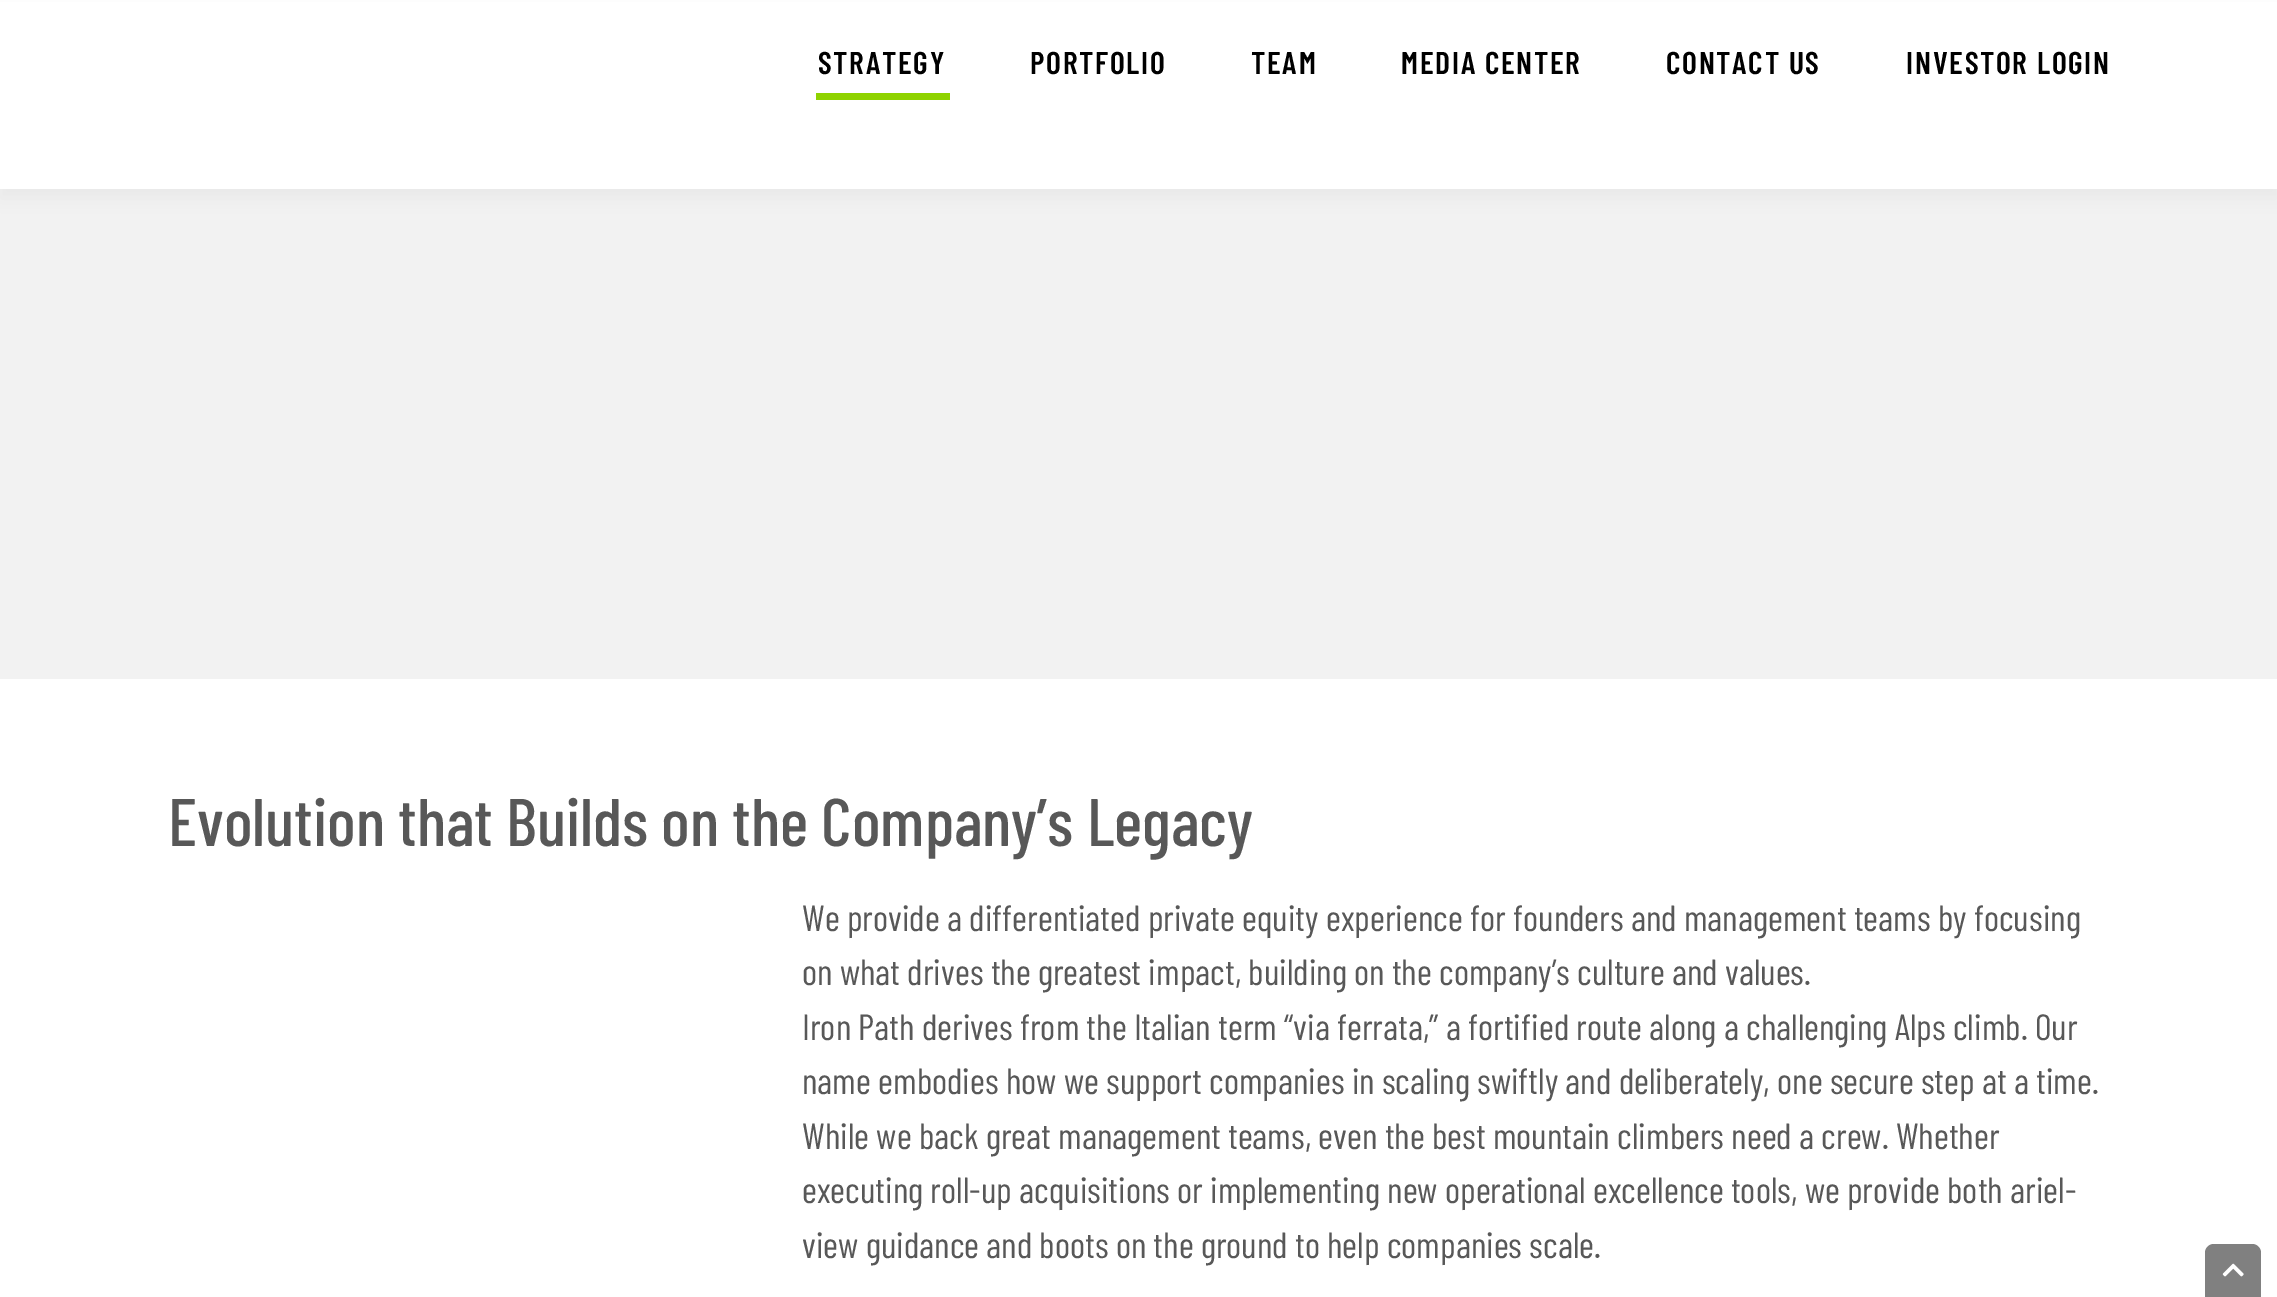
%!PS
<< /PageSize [2277 1297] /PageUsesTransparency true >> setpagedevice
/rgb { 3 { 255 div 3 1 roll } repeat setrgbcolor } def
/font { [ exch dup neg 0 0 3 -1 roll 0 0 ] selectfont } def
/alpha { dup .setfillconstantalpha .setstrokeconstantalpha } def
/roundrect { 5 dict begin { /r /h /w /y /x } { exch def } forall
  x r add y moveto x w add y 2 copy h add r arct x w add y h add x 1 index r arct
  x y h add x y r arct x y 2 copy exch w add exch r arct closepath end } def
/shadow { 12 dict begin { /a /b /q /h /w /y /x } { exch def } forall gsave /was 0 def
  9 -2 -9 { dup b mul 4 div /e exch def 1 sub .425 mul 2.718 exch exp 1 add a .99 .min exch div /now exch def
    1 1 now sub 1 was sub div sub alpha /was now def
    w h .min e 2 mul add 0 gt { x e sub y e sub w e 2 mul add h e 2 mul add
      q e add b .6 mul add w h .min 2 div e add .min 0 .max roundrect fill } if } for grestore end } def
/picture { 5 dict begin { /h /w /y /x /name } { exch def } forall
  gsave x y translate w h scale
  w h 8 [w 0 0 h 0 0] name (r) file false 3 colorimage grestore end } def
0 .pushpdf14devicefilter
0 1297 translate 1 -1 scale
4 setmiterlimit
255 255 255 rgb
0 0 2277 1297 rectfill
242 242 242 rgb
0 189 2277 490 rectfill
50 50 50 rgb
0 9 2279 189 0 9 0.06 shadow
255 255 255 rgb
0 2 2277 187 rectfill
143 211 0 rgb
816 93 134 7 rectfill
128 128 128 rgb
2214 1244 moveto 2252 1244 lineto 2257 1244 2261 1248 2261 1253 curveto 2261 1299 lineto 2205 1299 lineto 2205 1253 lineto 2205 1248 2209 1244 2214 1244 curveto closepath fill
(img/1.rgb) 2222 1263 22 14 picture
/BarlowCondensed-SemiBold 31.5 font
0 0 0 rgb
818 74 moveto 1.75 0 (STRATEGY) ashow
1030 74 moveto 1.75 0 (PORTFOLIO) ashow
1251 74 moveto 1.75 0 (TEAM) ashow
1401 74 moveto 1.75 0 (MEDIA CENTER) ashow
1666 74 moveto 1.75 0 (CONTACT US) ashow
1906 74 moveto 1.75 0 (INVESTOR LOGIN) ashow
/BarlowCondensed-Medium 67.25 font
88 88 88 rgb
168 846 moveto (Evolution that Builds on the Company’s Legacy) show
/BarlowCondensed-Regular 36.4 font
[
  [(We provide a differentiated private equity experience for founders and management teams by focusing) 802 931]
  [(on what drives the greatest impact, building on the company’s culture and values.) 802 985]
  [(Iron Path derives from the Italian term “via ferrata,” a fortified route along a challenging Alps climb. Our) 802 1040]
  [(name embodies how we support companies in scaling swiftly and deliberately, one secure step at a time.) 802 1094]
  [(While we back great management teams, even the best mountain climbers need a crew. Whether) 802 1149]
  [(executing roll-up acquisitions or implementing new operational excellence tools, we provide both ariel-) 802 1203]
  [(view guidance and boots on the ground to help companies scale.) 802 1258]
] { aload pop moveto show } forall
.poppdf14devicefilter showpage
